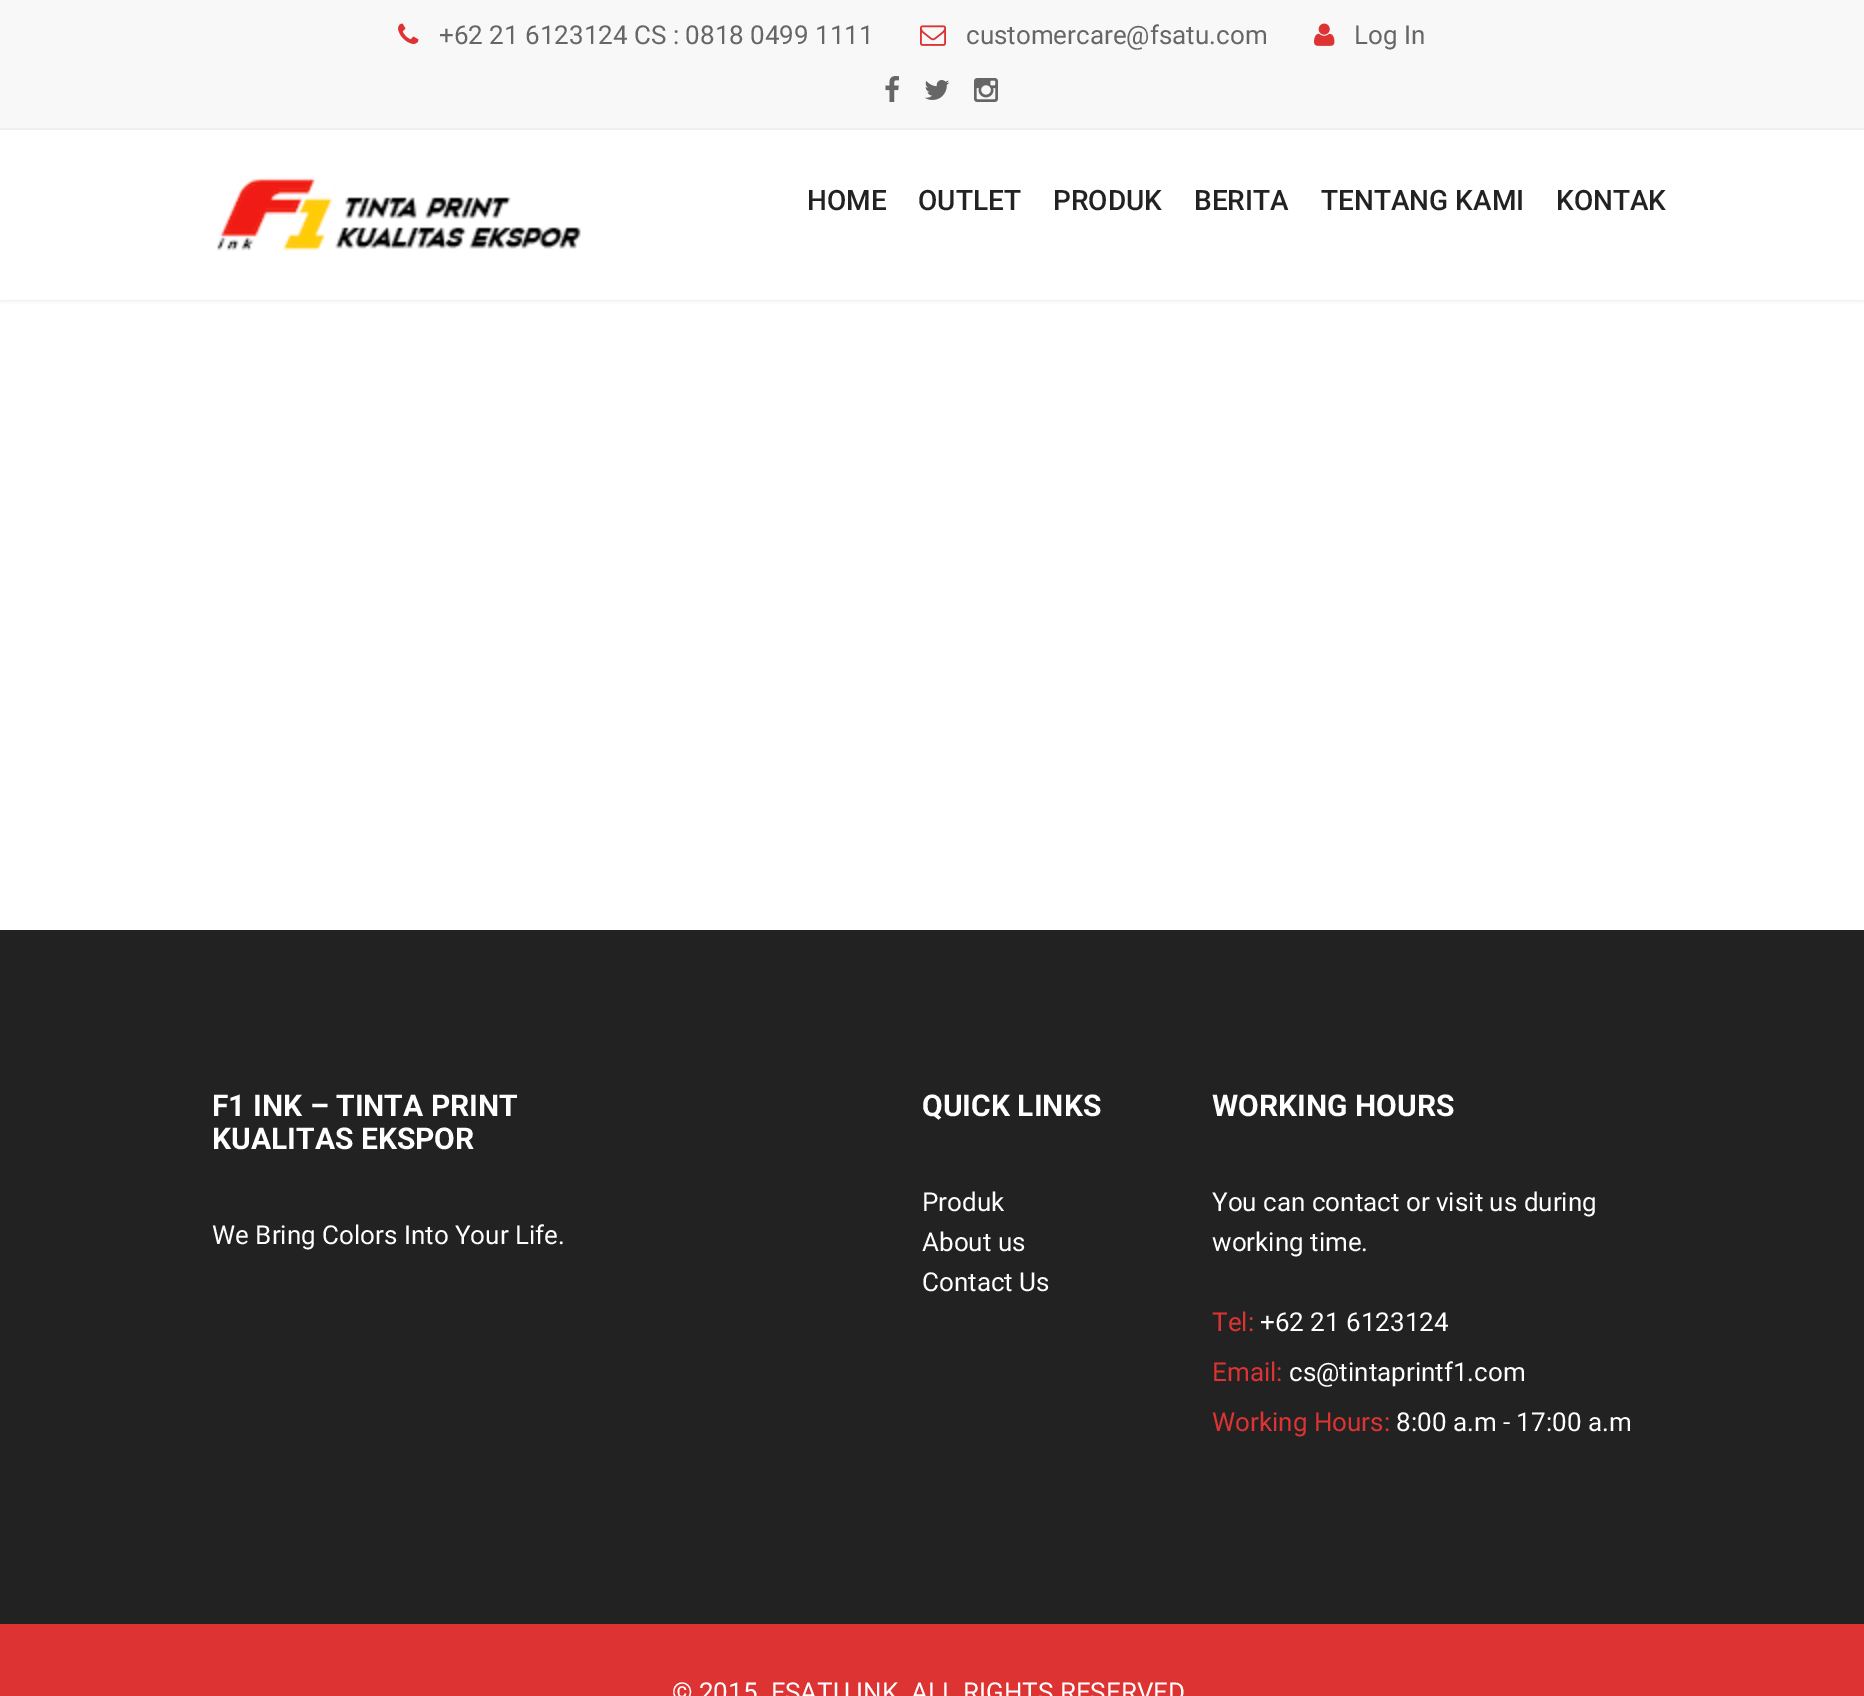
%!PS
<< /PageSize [1864 1696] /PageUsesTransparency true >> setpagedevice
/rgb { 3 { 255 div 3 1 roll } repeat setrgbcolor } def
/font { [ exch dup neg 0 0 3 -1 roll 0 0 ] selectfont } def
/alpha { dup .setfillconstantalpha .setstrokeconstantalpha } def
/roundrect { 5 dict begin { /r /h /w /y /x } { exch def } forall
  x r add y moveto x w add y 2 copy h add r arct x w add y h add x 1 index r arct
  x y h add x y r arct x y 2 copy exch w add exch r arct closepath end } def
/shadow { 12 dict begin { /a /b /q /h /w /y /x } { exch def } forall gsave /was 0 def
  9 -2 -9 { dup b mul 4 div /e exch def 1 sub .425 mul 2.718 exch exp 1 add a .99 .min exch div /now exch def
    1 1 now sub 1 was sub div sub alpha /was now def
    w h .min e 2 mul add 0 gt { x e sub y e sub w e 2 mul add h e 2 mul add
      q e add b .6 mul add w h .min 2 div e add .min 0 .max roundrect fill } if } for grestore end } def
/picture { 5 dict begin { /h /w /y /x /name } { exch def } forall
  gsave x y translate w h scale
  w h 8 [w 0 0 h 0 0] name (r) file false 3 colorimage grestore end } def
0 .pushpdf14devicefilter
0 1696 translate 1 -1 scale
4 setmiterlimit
255 255 255 rgb
0 0 1864 1696 rectfill
221 221 221 rgb
0 0 1864 300 0 2 1 shadow
[
  [0 130 1864 170 255 255 255]
  [0 0 1864 128 248 248 248]
  [0 128 1864 2 240 240 240]
] { aload pop rgb rectfill } forall
(img/1.rgb) 398 23 21 21 picture
(img/2.rgb) 920 25 26 21 picture
(img/3.rgb) 1314 23 21 23 picture
(img/4.rgb) 885 76 14 26 picture
(img/5.rgb) 924 80 26 20 picture
(img/6.rgb) 974 78 24 24 picture
(img/7.rgb) 217 177 364 74 picture
34 34 34 rgb
0 930 1864 694 rectfill
221 51 51 rgb
0 1624 1864 72 rectfill
/Roboto-Regular 26 font
102 102 102 rgb
[
  [(+62 21 6123124 CS : 0818 0499 1111) 439 44]
  [(customercare@fsatu.com) 966 44]
  [(Log In) 1354 44]
] { aload pop moveto show } forall
/Roboto-Medium 28 font
34 34 34 rgb
[
  [(HOME) 807 210]
  [(OUTLET) 918 210]
  [(PRODUK) 1053 210]
  [(BERITA) 1194 210]
  [(TENTANG KAMI) 1321 210]
  [(KONTAK) 1556 210]
] { aload pop moveto show } forall
/Roboto-Bold 30 font
255 255 255 rgb
212 1116 moveto (F1 INK – TINTA PRINT) show
212 1149 moveto (KUALITAS EKSPOR) show
/Roboto-Regular 26 font
212 1244 moveto (We Bring Colors Into Your Life.) show
/Roboto-Bold 30 font
922 1116 moveto (QUICK LINKS) show
/Roboto-Regular 26 font
[
  [(Produk) 922 1211]
  [(About us) 922 1251]
  [(Contact Us) 922 1291]
] { aload pop moveto show } forall
/Roboto-Bold 30 font
1212 1116 moveto (WORKING HOURS) show
/Roboto-Regular 26 font
1212 1211 moveto (You can contact or visit us during) show
1212 1251 moveto (working time.) show
221 51 51 rgb
1212 1331 moveto (Tel:) show
255 255 255 rgb
1260 1331 moveto (+62 21 6123124) show
221 51 51 rgb
1212 1381 moveto (Email:) show
255 255 255 rgb
1289 1381 moveto (cs@tintaprintf1.com) show
221 51 51 rgb
1212 1431 moveto (Working Hours:) show
255 255 255 rgb
1396 1431 moveto (8:00 a.m - 17:00 a.m) show
672 1701 moveto (© 2015. FSATU INK. ALL RIGHTS RESERVED) show
.poppdf14devicefilter showpage
